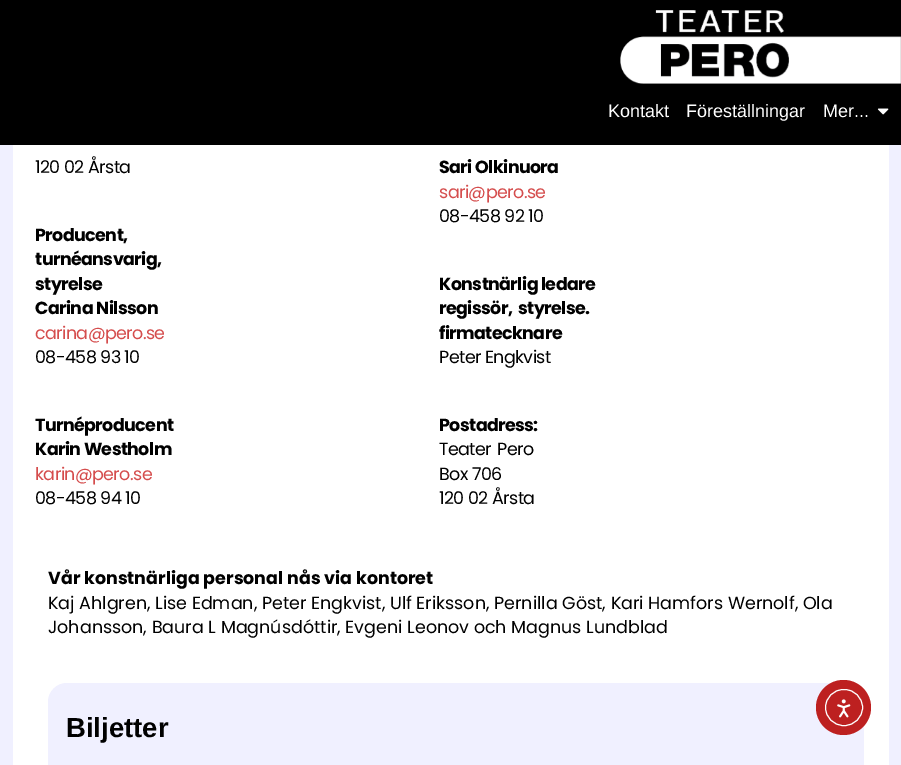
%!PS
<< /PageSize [901 765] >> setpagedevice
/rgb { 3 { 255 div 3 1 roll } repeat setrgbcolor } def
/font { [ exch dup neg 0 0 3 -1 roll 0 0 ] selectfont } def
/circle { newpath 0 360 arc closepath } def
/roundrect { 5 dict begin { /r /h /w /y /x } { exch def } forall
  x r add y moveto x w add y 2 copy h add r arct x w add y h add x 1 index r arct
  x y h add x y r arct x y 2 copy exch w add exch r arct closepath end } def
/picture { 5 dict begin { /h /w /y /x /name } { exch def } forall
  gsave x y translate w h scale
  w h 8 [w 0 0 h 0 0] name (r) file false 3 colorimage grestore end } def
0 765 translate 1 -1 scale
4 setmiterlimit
240 240 255 rgb
0 0 901 765 rectfill
0 0 0 rgb
0 0 901 145 rectfill
(img/1.rgb) 620 10 281 74 picture
(img/2.rgb) 877 108 12 7 picture
255 255 255 rgb
13 145 876 620 rectfill
240 240 255 rgb
48 683 816 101 19 roundrect fill
189 32 32 rgb
843.5 707.5 27.5 circle fill
255 255 255 rgb
825.5 689.5 37 36 18 roundrect stroke
(img/3.rgb) 837 699 14 19 picture
/LiberationSans-Regular 18 font
[
  [(Kontakt) 608 117]
  [(Föreställningar) 686 117]
  [(Mer...) 823 117]
] { aload pop moveto show } forall
/Poppins-Regular 17.5 font
0 0 0 rgb
35 173 moveto -0.6 0 (120 02 Årsta) ashow
/Poppins-Bold 17.5 font
35 241 moveto -0.6 0 (Producent,) ashow
35 265 moveto -0.6 0 (turnéansvarig,) ashow
35 290 moveto -0.6 0 (styrelse) ashow
35 314 moveto -0.6 0 (Carina Nilsson) ashow
/Poppins-Regular 17.5 font
213 77 77 rgb
35 339 moveto -0.6 0 (carina@pero.se) ashow
0 0 0 rgb
35 363 moveto -0.6 0 (08-458 93 10) ashow
/Poppins-Bold 17.5 font
35 431 moveto -0.6 0 (Turnéproducent) ashow
35 455 moveto -0.6 0 (Karin Westholm) ashow
/Poppins-Regular 17.5 font
213 77 77 rgb
35 480 moveto -0.6 0 (karin@pero.se) ashow
0 0 0 rgb
35 504 moveto -0.6 0 (08-458 94 10) ashow
/Poppins-Bold 17.5 font
439 173 moveto -0.6 0 (Sari Olkinuora) ashow
/Poppins-Regular 17.5 font
213 77 77 rgb
439 198 moveto -0.6 0 (sari@pero.se) ashow
0 0 0 rgb
439 222 moveto -0.6 0 (08-458 92 10) ashow
/Poppins-Bold 17.5 font
439 290 moveto -0.6 0 (Konstnärlig ledare) ashow
439 314 moveto 3 0 32 -0.6 0 (regissör, styrelse.) awidthshow
439 339 moveto -0.6 0 (firmatecknare) ashow
/Poppins-Regular 17.5 font
439 363 moveto -0.6 0 (Peter Engkvist) ashow
/Poppins-Bold 17.5 font
439 431 moveto -0.6 0 (Postadress:) ashow
/Poppins-Regular 17.5 font
439 455 moveto 2 0 32 -0.6 0 (Teater Pero) awidthshow
439 480 moveto -0.6 0 (Box 706) ashow
439 504 moveto -0.6 0 (120 02 Årsta) ashow
/Poppins-Bold 17.5 font
48 584 moveto (Vår konstnärliga personal nås via kontoret) show
/Poppins-Regular 17.5 font
48 609 moveto (Kaj Ahlgren, Lise Edman, Peter Engkvist, Ulf Eriksson, Pernilla Göst, Kari Hamfors Wernolf, Ola) show
48 633 moveto (Johansson, Baura L Magnúsdóttir, Evgeni Leonov och Magnus Lundblad) show
/LiberationSans-Bold 27.5 font
66 737 moveto (Biljetter) show
showpage
